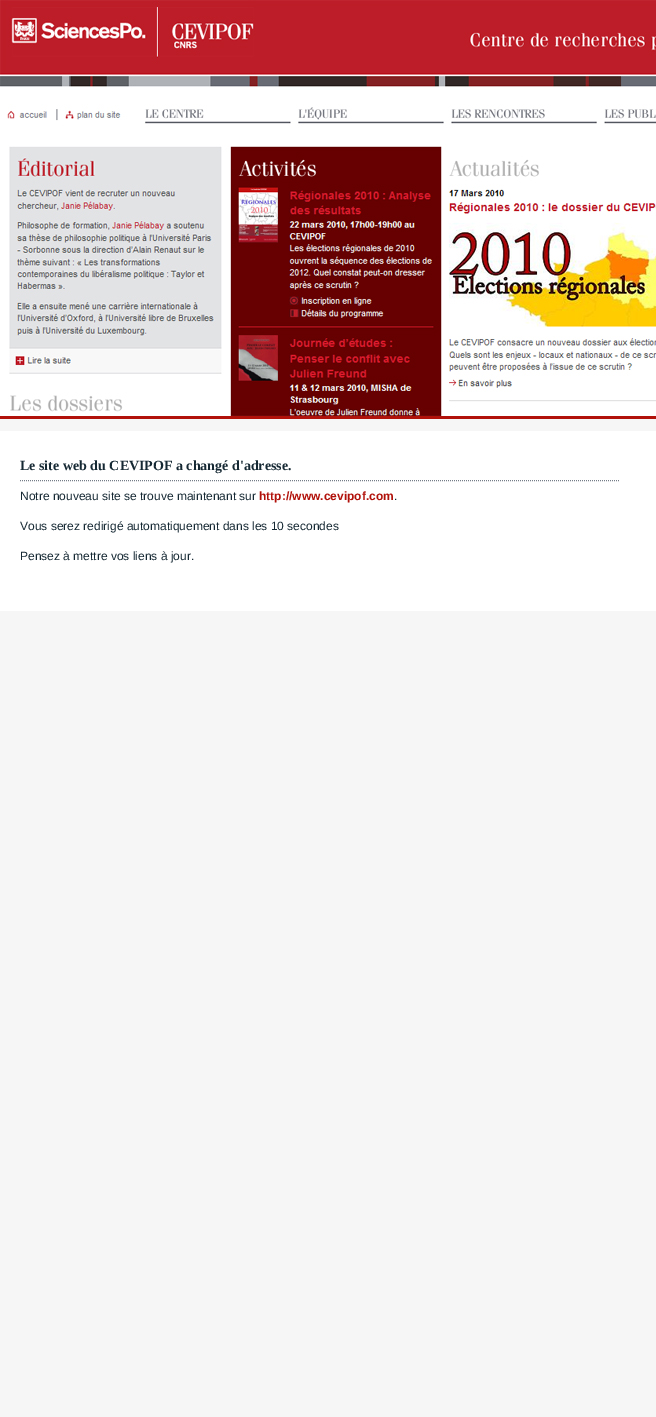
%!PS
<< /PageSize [656 1417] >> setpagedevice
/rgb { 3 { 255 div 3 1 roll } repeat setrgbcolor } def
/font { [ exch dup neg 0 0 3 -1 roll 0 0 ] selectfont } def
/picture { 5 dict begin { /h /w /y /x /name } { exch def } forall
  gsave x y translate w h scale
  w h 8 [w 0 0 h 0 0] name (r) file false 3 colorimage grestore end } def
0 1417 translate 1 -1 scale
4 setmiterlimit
246 246 246 rgb
0 0 656 1417 rectfill
(img/1.rgb) 0 0 656 416 picture
177 17 10 rgb
0 416 656 3 rectfill
255 255 255 rgb
0 431 656 180 rectfill
116 124 135 rgb
[1 1] 0 setdash
20 480.5 moveto 620 480.5 lineto stroke
/LiberationSerif-Bold 14 font
22 41 52 rgb
20 470 moveto (Le site web du CEVIPOF a changé d'adresse.) show
/LiberationSans-Regular 12 font
20 500 moveto (Notre nouveau site se trouve maintenant sur) show
/LiberationSans-Bold 12 font
177 17 10 rgb
259 500 moveto (http://www.cevipof.com) show
/LiberationSans-Regular 12 font
22 41 52 rgb
[
  [(.) 394 500]
  [(Vous serez redirigé automatiquement dans les 10 secondes) 20 530]
  [(Pensez à mettre vos liens à jour.) 20 560]
] { aload pop moveto show } forall
showpage
